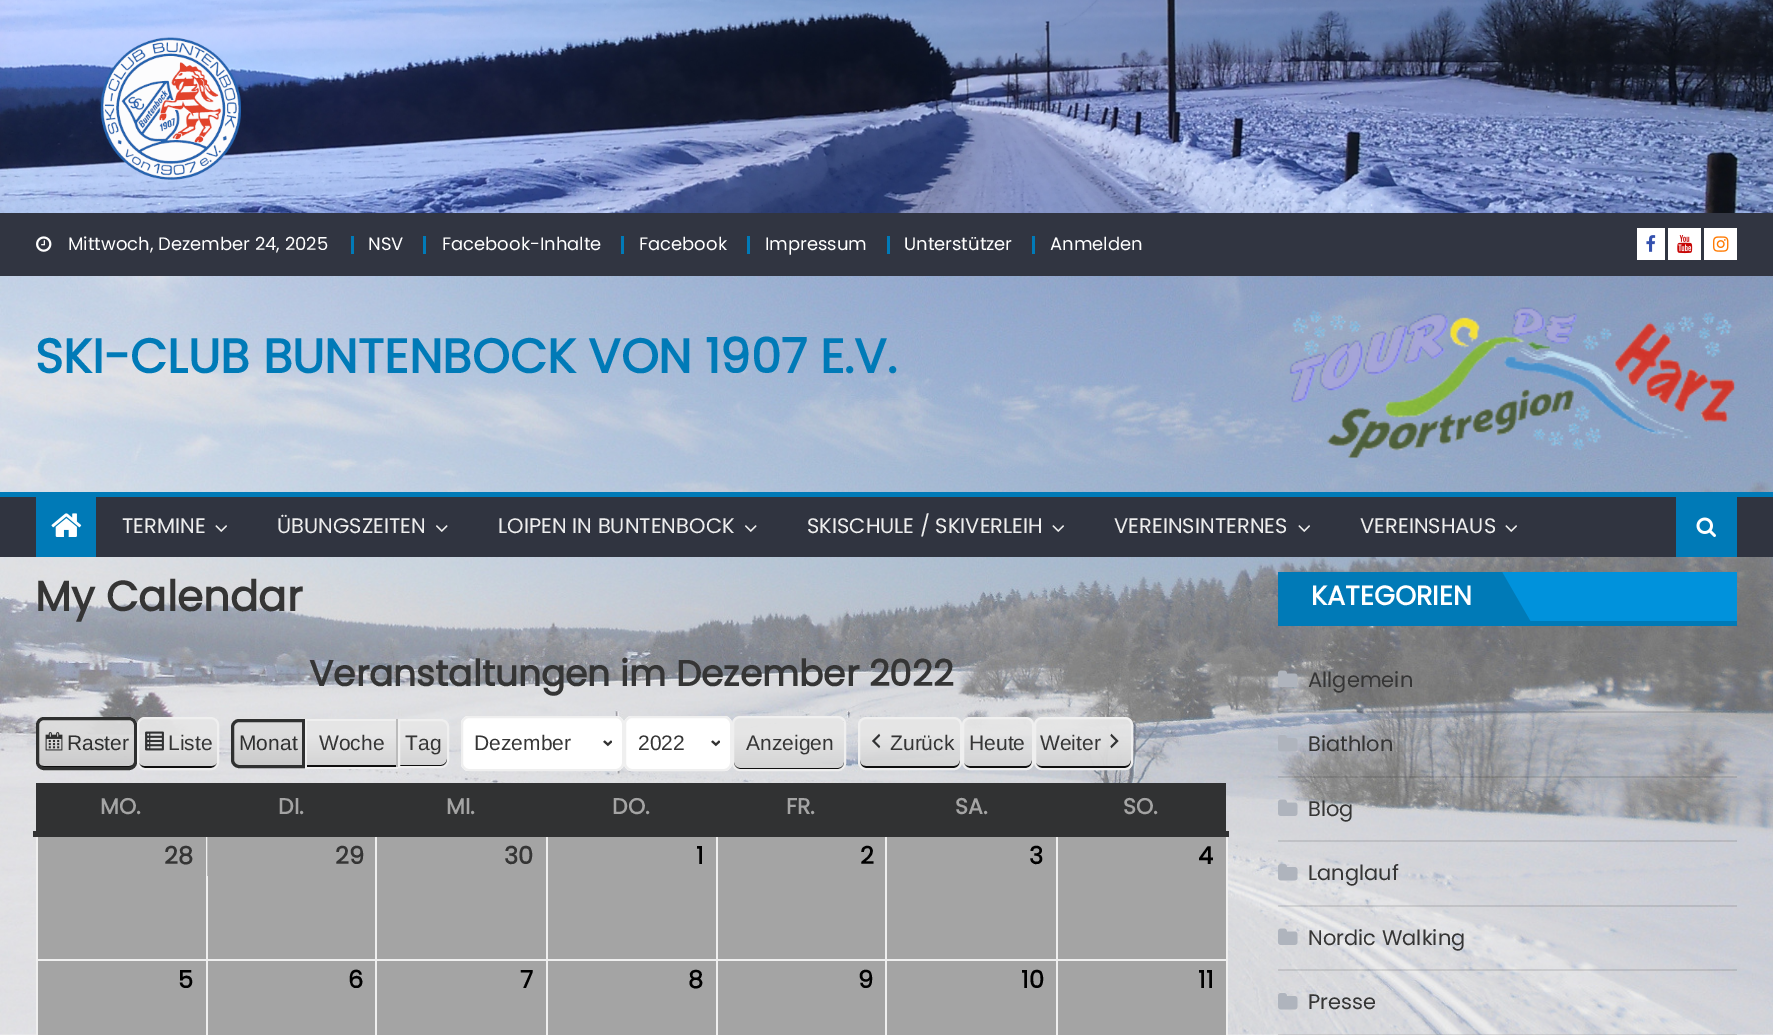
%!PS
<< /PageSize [1773 1035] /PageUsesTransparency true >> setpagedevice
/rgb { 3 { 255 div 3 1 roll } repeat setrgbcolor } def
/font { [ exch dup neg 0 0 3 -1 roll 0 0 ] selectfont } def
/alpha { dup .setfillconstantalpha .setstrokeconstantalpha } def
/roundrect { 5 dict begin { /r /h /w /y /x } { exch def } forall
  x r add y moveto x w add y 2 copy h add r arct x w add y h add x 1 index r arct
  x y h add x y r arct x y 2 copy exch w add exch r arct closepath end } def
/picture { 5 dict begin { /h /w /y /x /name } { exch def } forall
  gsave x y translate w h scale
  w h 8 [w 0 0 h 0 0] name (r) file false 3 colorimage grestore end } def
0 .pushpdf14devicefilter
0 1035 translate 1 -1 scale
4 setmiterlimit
255 255 255 rgb
0 0 1773 1035 rectfill
(img/1.rgb) 0 276 1773 759 picture
(img/2.rgb) 0 0 1773 213 picture
49 53 65 rgb
0 213 1773 63 rectfill
(img/3.rgb) 36 236 16 16 picture
[
  [351 236 3 18 0 122 183]
  [423 236 3 18 0 122 183]
  [621 236 3 18 0 122 183]
  [747 236 3 18 0 122 183]
  [887 236 3 18 0 122 183]
  [1032 236 3 18 0 122 183]
  [1637 228 28 32 255 255 255]
] { aload pop rgb rectfill } forall
(img/4.rgb) 1646 235 10 17 picture
1668 228 33 32 rectfill
(img/5.rgb) 1677 235 16 19 picture
1704 228 33 32 rectfill
(img/6.rgb) 1713 236 16 16 picture
(img/7.rgb) 1289 307 446 151 picture
[
  [0 497 1773 60 48 52 64]
  [0 492 1773 5 0 122 183]
  [36 497 60 60 0 122 183]
] { aload pop rgb rectfill } forall
(img/8.rgb) 51 513 31 24 picture
(img/9.rgb) 215 525 12 7 picture
(img/10.rgb) 436 525 12 7 picture
(img/10.rgb) 745 525 12 7 picture
(img/9.rgb) 1052 525 12 7 picture
(img/9.rgb) 1298 525 12 7 picture
(img/9.rgb) 1505 525 12 7 picture
1676 497 61 60 rectfill
(img/11.rgb) 1696 517 20 20 picture
14 14 14 rgb
38 760 moveto 38 772 49 768 58 768 curveto 115 768 lineto 124 768 135 772 135 760 curveto 135 764 132 766 129 766 curveto 44 766 lineto 40 766 38 764 38 760 curveto closepath fill
227 227 227 rgb
2 setlinewidth
37 718 99 51 7 roundrect stroke
(img/12.rgb) 45 732 18 19 picture
47 48 48 rgb
3 setlinewidth
37.5 718.5 98 50 6.5 roundrect stroke
15 15 15 rgb
138 760 moveto 138 771 147 768 155 768 curveto 201 768 lineto 209 768 218 771 218 760 curveto 218 764 215 766 212 766 curveto 144 766 lineto 141 766 138 764 138 760 curveto closepath fill
239 239 239 rgb
2 setlinewidth
138 718 80 51 7 roundrect stroke
(img/13.rgb) 145 731 19 20 picture
227 227 227 rgb
238 720 moveto 237 720 235 721 234 722 curveto 233 720 lineto 236 718 lineto 304 718 lineto 303 720 lineto closepath fill
238 768 moveto 304 768 lineto 302 766 lineto 238 766 lineto 237 766 235 766 234 765 curveto 233 766 lineto 234 767 236 768 238 768 curveto closepath fill
231 726 moveto 231 760 lineto 231 763 232 765 233 766 curveto 234 765 lineto 233 764 232 762 232 760 curveto 232 726 lineto 232 724 233 723 234 722 curveto 233 720 lineto 232 722 231 724 231 726 curveto closepath fill
47 48 48 rgb
3 setlinewidth
239 720.5 moveto 303.5 720.5 lineto 303.5 766.5 lineto 239 766.5 lineto 235.5 766.5 232.5 763.5 232.5 760 curveto 232.5 727 lineto 232.5 723.5 235.5 720.5 239 720.5 curveto closepath stroke
[
  [306 765 90 2 15 15 15]
  [305 719 93 2 239 239 239]
  [396 719 2 49 187 187 187]
  [305 767 93 2 239 239 239]
  [305 719 2 49 239 239 239]
] { aload pop rgb rectfill } forall
15 15 15 rgb
399 765 moveto 399 767 lineto 441 767 lineto 444 767 447 764 447 761 curveto 447 759 lineto 447 762 444 765 441 765 curveto closepath fill
239 239 239 rgb
2 setlinewidth
399 720 moveto 441 720 lineto 445 720 448 723 448 727 curveto 448 760 lineto 448 764 445 767 441 767 curveto 399 767 lineto closepath stroke
255 255 255 rgb
461 716 163 55 8 roundrect fill
(img/14.rgb) 603 740 9 7 picture
239 239 239 rgb
462 717 161 53 7 roundrect stroke
255 255 255 rgb
624 716 108 55 8 roundrect fill
(img/14.rgb) 711 740 9 7 picture
239 239 239 rgb
625 717 106 53 7 roundrect stroke
15 15 15 rgb
734 762 moveto 734 764 lineto 734 767 737 770 740 770 curveto 839 770 lineto 842 770 845 767 845 764 curveto 845 723 lineto 845 721 844 720 843 719 curveto 844 722 lineto 844 762 lineto 844 765 842 768 838 768 curveto 740 768 lineto 736 768 734 765 734 762 curveto closepath fill
239 239 239 rgb
733 717 112 53 7 roundrect stroke
15 15 15 rgb
860 760 moveto 860 772 872 768 881 768 curveto 939 768 lineto 948 768 960 772 960 760 curveto 960 764 957 766 954 766 curveto 866 766 lineto 862 766 860 764 860 760 curveto closepath fill
239 239 239 rgb
859 718 102 51 7 roundrect stroke
(img/15.rgb) 872 733 9 16 picture
15 15 15 rgb
963 760 moveto 963 770 970 768 978 768 curveto 1016 768 lineto 1025 768 1032 770 1032 760 curveto 1032 764 1029 766 1026 766 curveto 969 766 lineto 966 766 963 764 963 760 curveto closepath fill
239 239 239 rgb
963 718 70 51 7 roundrect stroke
15 15 15 rgb
1035 760 moveto 1035 772 1046 768 1055 768 curveto 1111 768 lineto 1120 768 1131 772 1131 760 curveto 1131 764 1128 766 1125 766 curveto 1041 766 lineto 1038 766 1035 764 1035 760 curveto closepath fill
239 239 239 rgb
1035 718 97 51 7 roundrect stroke
(img/16.rgb) 1110 733 9 16 picture
[
  [38 837 1188 198 164 164 164]
  [1056 959 171 2 239 239 239]
  [1056 959 2 76 239 239 239]
  [885 959 173 2 239 239 239]
  [885 959 2 76 239 239 239]
  [716 959 171 2 239 239 239]
  [716 959 2 76 239 239 239]
  [546 959 171 2 239 239 239]
  [546 959 2 76 239 239 239]
  [375 959 173 2 239 239 239]
  [375 959 2 76 239 239 239]
  [206 959 171 2 239 239 239]
  [206 959 2 76 239 239 239]
  [36 959 171 2 239 239 239]
  [206 833 2 127 239 239 239]
  [375 833 2 127 239 239 239]
  [546 833 2 127 239 239 239]
  [716 833 2 127 239 239 239]
  [885 833 2 127 239 239 239]
  [1056 833 2 127 239 239 239]
  [36 833 2 202 239 239 239]
  [1226 833 2 202 239 239 239]
  [33 831 1196 6 49 50 51]
  [36 783 1190 48 49 50 51]
] { aload pop rgb rectfill } forall
0.7 alpha
[
  [207 837 1 39 164 164 164]
] { aload pop rgb rectfill } forall
1 alpha
[
  [1502 572 235 49 0 146 220]
  [1278 621 459 5 0 122 183]
  [1278 572 3 54 0 122 183]
  [1281 572 221 49 0 122 183]
] { aload pop rgb rectfill } forall
1532 624 moveto 1502 624 lineto 1502 572 lineto closepath fill
0.1 alpha
0 0 0 rgb
1278 711 459 2 rectfill
1 alpha
(img/17.rgb) 1278 670 20 17 picture
0.1 alpha
1278 776 459 2 rectfill
1 alpha
(img/18.rgb) 1278 735 20 17 picture
0.1 alpha
1278 840 459 2 rectfill
1 alpha
(img/19.rgb) 1278 799 20 17 picture
0.1 alpha
1278 905 459 2 rectfill
1 alpha
(img/20.rgb) 1278 864 20 17 picture
0.1 alpha
1278 969 459 2 rectfill
1 alpha
(img/21.rgb) 1278 928 20 17 picture
0.1 alpha
1278 1034 459 1 rectfill
1 alpha
(img/22.rgb) 1278 993 20 17 picture
/Poppins-Regular 18 font
255 255 255 rgb
[
  [(Mittwoch, Dezember 24, 2025) 68 250]
  [(NSV) 368 250]
  [(Facebook-Inhalte) 442 250]
  [(Facebook) 639 250]
  [(Impressum) 765 250]
  [(Unterstützer) 904 250]
  [(Anmelden) 1050 250]
] { aload pop moveto show } forall
/Poppins-Bold 48 font
0 122 183 rgb
35 373 moveto (SKI-CLUB BUNTENBOCK VON 1907 E.V.) show
/Poppins-Regular 21 font
238 238 238 rgb
[
  [(TERMINE) 122 533]
  [(ÜBUNGSZEITEN) 277 533]
  [(LOIPEN IN BUNTENBOCK) 498 533]
  [(SKISCHULE / SKIVERLEIH) 807 533]
  [(VEREINSINTERNES) 1114 533]
  [(VEREINSHAUS) 1360 533]
] { aload pop moveto show } forall
/Poppins-Bold 42 font
53 53 53 rgb
35 611 moveto (My Calendar) show
/Poppins-Bold 36 font
309 686 moveto (Veranstaltungen im Dezember 2022) show
/LiberationSans-Regular 21 font
47 48 48 rgb
67 750 moveto (Raster) show
53 53 53 rgb
168 750 moveto (Liste) show
47 48 48 rgb
239 750 moveto (Monat) show
53 53 53 rgb
[
  [(Woche) 319 750]
  [(Tag) 405 750]
  [(Dezember) 474 750]
  [(2022) 638 750]
  [(Anzeigen) 746 750]
  [(Zurück) 890 750]
  [(Heute) 969 750]
  [(Weiter) 1040 750]
] { aload pop moveto show } forall
/Poppins-Bold 22 font
164 164 164 rgb
[
  [(MO.) 100 814]
  [(DI.) 278 814]
  [(MI.) 446 814]
  [(DO.) 612 814]
  [(FR.) 786 814]
  [(SA.) 955 814]
  [(SO.) 1123 814]
] { aload pop moveto show } forall
/Poppins-Bold 24 font
53 53 53 rgb
[
  [(28) 164 864]
  [(29) 335 864]
  [(30) 504 864]
] { aload pop moveto show } forall
0 0 0 rgb
[
  [(1) 696 864]
  [(2) 860 864]
  [(3) 1029 864]
  [(4) 1198 864]
  [(5) 178 988]
  [(6) 348 988]
  [(7) 520 988]
  [(8) 688 988]
  [(9) 858 988]
  [(10) 1021 988]
  [(11) 1198 988]
] { aload pop moveto show } forall
/Poppins-Bold 27 font
255 255 255 rgb
1311 605 moveto (KATEGORIEN) show
/Poppins-Regular 21 font
53 53 53 rgb
[
  [(Allgemein) 1308 687]
  [(Biathlon) 1308 751]
  [(Blog) 1308 816]
  [(Langlauf) 1308 880]
  [(Nordic Walking) 1308 945]
  [(Presse) 1308 1009]
] { aload pop moveto show } forall
.poppdf14devicefilter showpage
